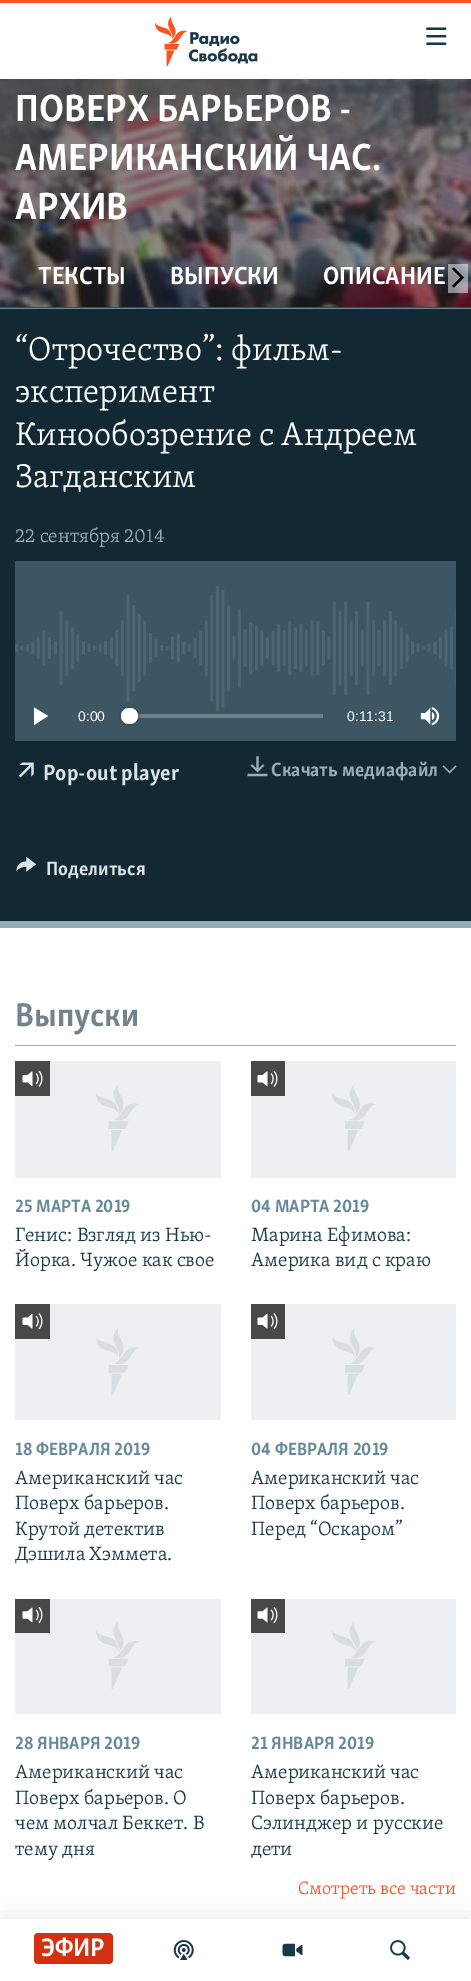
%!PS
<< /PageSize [471 1981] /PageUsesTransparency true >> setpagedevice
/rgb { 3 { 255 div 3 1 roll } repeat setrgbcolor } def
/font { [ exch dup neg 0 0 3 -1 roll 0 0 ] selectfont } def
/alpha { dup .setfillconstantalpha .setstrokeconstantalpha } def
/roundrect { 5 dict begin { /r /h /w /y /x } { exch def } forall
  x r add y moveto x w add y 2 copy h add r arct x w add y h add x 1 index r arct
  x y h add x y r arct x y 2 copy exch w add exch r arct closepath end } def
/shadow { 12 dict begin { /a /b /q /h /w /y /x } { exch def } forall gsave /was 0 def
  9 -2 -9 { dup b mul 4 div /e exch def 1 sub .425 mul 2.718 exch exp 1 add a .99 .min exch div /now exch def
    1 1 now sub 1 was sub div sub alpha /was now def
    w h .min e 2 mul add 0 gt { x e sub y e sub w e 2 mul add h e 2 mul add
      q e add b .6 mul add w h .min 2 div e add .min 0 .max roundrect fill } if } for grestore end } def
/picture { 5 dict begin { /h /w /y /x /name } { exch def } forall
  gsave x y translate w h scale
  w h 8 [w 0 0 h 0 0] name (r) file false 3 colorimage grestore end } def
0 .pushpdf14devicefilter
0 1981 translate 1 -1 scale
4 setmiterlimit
255 255 255 rgb
0 0 471 1981 rectfill
73 68 68 rgb
0 307 471 1 rectfill
(img/1.rgb) 0 79 471 228 picture
0.5 alpha
255 255 255 rgb
448 264 20 29 rectfill
1 alpha
0 0 0 rgb
454 287.5 moveto 464 277.5 lineto 454 267.5 lineto 452 269 lineto 460.5 277.5 lineto 452 286 lineto closepath fill
[
  [0 309 471 612 18 40 50]
  [0 308 471 1 103 138 155]
  [0 921 471 7 149 173 185]
  [15 561 441 180 60 87 99]
] { aload pop rgb rectfill } forall
(img/2.rgb) 15 586 441 125 picture
255 255 255 rgb
34 725 moveto 48 716 lineto 34 707.5 lineto closepath fill
109 129 138 rgb
129 714 194 4 rectfill
65 65 68 rgb
121 708 17 16 8 2 1 shadow
255 255 255 rgb
121 708 17 16 8 roundrect fill
(img/3.rgb) 420 707 20 19 picture
(img/4.rgb) 18 762 16 16 picture
(img/5.rgb) 247 756 21 21 picture
(img/6.rgb) 442 765 15 9 picture
(img/7.rgb) 16 856 21 16 picture
149 173 185 rgb
15 1045 441 1 rectfill
237 239 240 rgb
15 1061 206 117 rectfill
(img/8.rgb) 96 1085 43 67 picture
71 72 72 rgb
15 1061 35 35 rectfill
(img/9.rgb) 22 1070 21 17 picture
237 239 240 rgb
251 1061 205 117 rectfill
(img/10.rgb) 332 1084 44 68 picture
71 72 72 rgb
251 1061 34 35 rectfill
(img/9.rgb) 257 1070 21 17 picture
237 239 240 rgb
15 1304 206 116 rectfill
(img/11.rgb) 96 1328 43 67 picture
71 72 72 rgb
15 1304 35 35 rectfill
(img/12.rgb) 22 1313 21 17 picture
237 239 240 rgb
251 1304 205 116 rectfill
(img/13.rgb) 332 1328 43 67 picture
71 72 72 rgb
251 1304 34 35 rectfill
(img/12.rgb) 257 1313 21 17 picture
237 239 240 rgb
15 1599 206 115 rectfill
(img/14.rgb) 96 1622 43 67 picture
71 72 72 rgb
15 1599 35 34 rectfill
(img/15.rgb) 22 1606 21 18 picture
237 239 240 rgb
251 1599 205 115 rectfill
(img/16.rgb) 332 1622 44 67 picture
71 72 72 rgb
251 1599 34 34 rectfill
(img/15.rgb) 257 1606 21 18 picture
0 0 0 rgb
0 0 471 79 0 12.5 0.1 shadow
255 255 255 rgb
0 3 471 76 rectfill
250 84 32 rgb
0 0 471 3 rectfill
(img/17.rgb) 155 16 103 50 picture
(img/18.rgb) 426 27 21 18 picture
0 0 0 rgb
0 1919 471 62 0 12.5 0.1 shadow
255 255 255 rgb
0 1919 471 62 rectfill
211 49 17 rgb
34 1933 79 31 4 roundrect fill
(img/19.rgb) 173 1940 21 20 picture
(img/20.rgb) 282 1943 21 14 picture
(img/21.rgb) 390 1940 20 20 picture
/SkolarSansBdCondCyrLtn-Bold 38.9 font
255 255 255 rgb
[
  [(ПОВЕРХ БАРЬЕРОВ -) 15 121]
  [(АМЕРИКАНСКИЙ ЧАС.) 15 170]
  [(АРХИВ) 15 219]
] { aload pop moveto show } forall
/SkolarSansBdCondCyrLtn-Bold 25.5 font
[
  [(ТЕКСТЫ) 38 284]
  [(ВЫПУСКИ) 170 284]
  [(ОПИСАНИЕ) 323 284]
] { aload pop moveto show } forall
/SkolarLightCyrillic-Light 33.75 font
[
  [(“Отрочество”: фильм-) 15 360]
  [(эксперимент) 15 402]
  [(Кинообозрение с Андреем) 15 445]
  [(Загданским) 15 487]
] { aload pop moveto show } forall
/SkolarLightCyrillic-Light 19.75 font
149 173 185 rgb
15 542 moveto (22 сентября 2014) show
/LiberationSans-Regular 14 font
255 255 255 rgb
78 721 moveto (0:00) show
347 721 moveto (0:11:31) show
/SkolarSansBdCondCyrLtn-Bold 22.5 font
220 228 232 rgb
43 780 moveto (Pop-out player) show
/SkolarSansBdCondCyrLtn-Bold 19.75 font
149 173 185 rgb
271 776 moveto (Скачать медиафайл) show
220 228 232 rgb
46 875 moveto (Поделиться) show
/SkolarSansBdCondCyrLtn-Bold 33.75 font
113 131 141 rgb
15 1026 moveto (Выпуски) show
/SkolarSansBdCondCyrLtn-Bold 18.25 font
103 138 155 rgb
15 1212 moveto (25 МАРТА 2019) show
/SkolarLightCyrillic-Light 19.75 font
26 57 72 rgb
15 1241 moveto (Генис: Взгляд из Нью-) show
15 1266 moveto (Йорка. Чужое как свое) show
/SkolarSansBdCondCyrLtn-Bold 18.25 font
103 138 155 rgb
251 1212 moveto (04 МАРТА 2019) show
/SkolarLightCyrillic-Light 19.75 font
26 57 72 rgb
251 1241 moveto (Марина Ефимова:) show
251 1266 moveto (Америка вид с краю) show
/SkolarSansBdCondCyrLtn-Bold 18.25 font
103 138 155 rgb
15 1455 moveto (18 ФЕВРАЛЯ 2019) show
/SkolarLightCyrillic-Light 19.75 font
26 57 72 rgb
[
  [(Американский час) 15 1484]
  [(Поверх барьеров.) 15 1509]
  [(Крутой детектив) 15 1535]
  [(Дэшила Хэммета.) 15 1560]
] { aload pop moveto show } forall
/SkolarSansBdCondCyrLtn-Bold 18.25 font
103 138 155 rgb
251 1455 moveto (04 ФЕВРАЛЯ 2019) show
/SkolarLightCyrillic-Light 19.75 font
26 57 72 rgb
[
  [(Американский час) 251 1484]
  [(Поверх барьеров.) 251 1509]
  [(Перед “Оскаром”) 251 1535]
] { aload pop moveto show } forall
/SkolarSansBdCondCyrLtn-Bold 18.25 font
103 138 155 rgb
15 1749 moveto (28 ЯНВАРЯ 2019) show
/SkolarLightCyrillic-Light 19.75 font
26 57 72 rgb
[
  [(Американский час) 15 1778]
  [(Поверх барьеров. О) 15 1804]
  [(чем молчал Беккет. В) 15 1829]
  [(тему дня) 15 1855]
] { aload pop moveto show } forall
/SkolarSansBdCondCyrLtn-Bold 18.25 font
103 138 155 rgb
251 1749 moveto (21 ЯНВАРЯ 2019) show
/SkolarLightCyrillic-Light 19.75 font
26 57 72 rgb
[
  [(Американский час) 251 1778]
  [(Поверх барьеров.) 251 1804]
  [(Сэлинджер и русские) 251 1829]
  [(дети) 251 1855]
] { aload pop moveto show } forall
/SkolarLightCyrillic-Light 18.25 font
250 84 32 rgb
298 1894 moveto (Смотреть все части) show
/SkolarSansBdCondCyrLtn-Bold 26 font
255 255 255 rgb
41 1956 moveto (ЭФИР) show
.poppdf14devicefilter showpage
